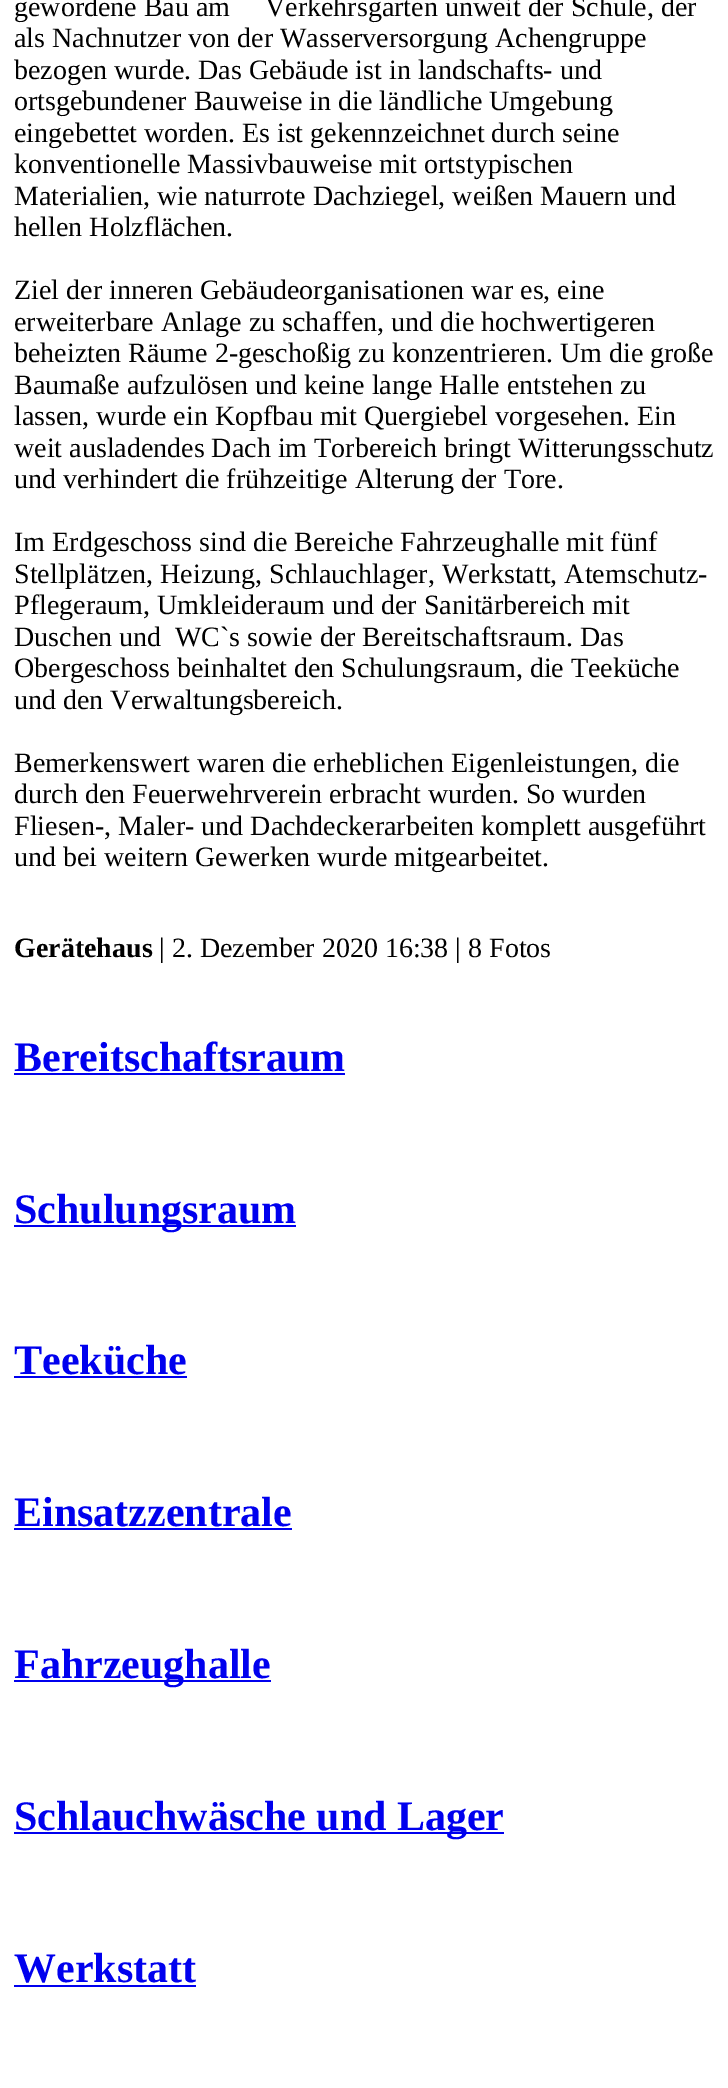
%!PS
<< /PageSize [728 2088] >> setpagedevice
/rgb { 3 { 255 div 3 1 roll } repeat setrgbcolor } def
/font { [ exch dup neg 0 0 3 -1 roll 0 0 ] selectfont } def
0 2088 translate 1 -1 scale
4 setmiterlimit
255 255 255 rgb
0 0 728 2088 rectfill
[
  [14 1073 331 2 0 0 238]
  [14 1225 282 2 0 0 238]
  [14 1376 173 2 0 0 238]
  [14 1528 278 2 0 0 238]
  [14 1680 257 2 0 0 238]
  [14 1832 490 2 0 0 238]
  [14 1985 182 2 0 0 238]
] { aload pop rgb rectfill } forall
/LiberationSerif-Regular 28 font
0 0 0 rgb
[
  [(gewordene Bau am) 14 16]
  [(Verkehrsgarten unweit der Schule, der) 265 16]
  [(als Nachnutzer von der Wasserversorgung Achengruppe) 14 47]
  [(bezogen wurde. Das Gebäude ist in landschafts- und) 14 79]
  [(ortsgebundener Bauweise in die ländliche Umgebung) 14 110]
  [(eingebettet worden. Es ist gekennzeichnet durch seine) 14 142]
  [(konventionelle Massivbauweise mit ortstypischen) 14 173]
  [(Materialien, wie naturrote Dachziegel, weißen Mauern und) 14 205]
  [(hellen Holzflächen.) 14 236]
  [(Ziel der inneren Gebäudeorganisationen war es, eine) 14 299]
  [(erweiterbare Anlage zu schaffen, und die hochwertigeren) 14 331]
  [(beheizten Räume 2-geschoßig zu konzentrieren. Um die große) 14 362]
  [(Baumaße aufzulösen und keine lange Halle entstehen zu) 14 394]
  [(lassen, wurde ein Kopfbau mit Quergiebel vorgesehen. Ein) 14 425]
  [(weit ausladendes Dach im Torbereich bringt Witterungsschutz) 14 457]
  [(und verhindert die frühzeitige Alterung der Tore.) 14 488]
  [(Im Erdgeschoss sind die Bereiche Fahrzeughalle mit fünf) 14 551]
  [(Stellplätzen, Heizung, Schlauchlager, Werkstatt, Atemschutz-) 14 583]
  [(Pflegeraum, Umkleideraum und der Sanitärbereich mit) 14 614]
  [(Duschen und  WC`s sowie der Bereitschaftsraum. Das) 14 646]
  [(Obergeschoss beinhaltet den Schulungsraum, die Teeküche) 14 677]
  [(und den Verwaltungsbereich.) 14 709]
  [(Bemerkenswert waren die erheblichen Eigenleistungen, die) 14 772]
  [(durch den Feuerwehrverein erbracht wurden. So wurden) 14 803]
  [(Fliesen-, Maler- und Dachdeckerarbeiten komplett ausgeführt) 14 835]
  [(und bei weitern Gewerken wurde mitgearbeitet.) 14 866]
] { aload pop moveto show } forall
/LiberationSerif-Bold 28 font
14 957 moveto (Gerätehaus) show
/LiberationSerif-Regular 28 font
159 957 moveto (| 2. Dezember 2020 16:38 | 8 Fotos) show
/LiberationSerif-Bold 42 font
0 0 238 rgb
[
  [(Bereitschaftsraum) 14 1071]
  [(Schulungsraum) 14 1223]
  [(Teeküche) 14 1374]
  [(Einsatzzentrale) 14 1526]
  [(Fahrzeughalle) 14 1678]
  [(Schlauchwäsche und Lager) 14 1830]
  [(Werkstatt) 14 1982]
] { aload pop moveto show } forall
showpage
